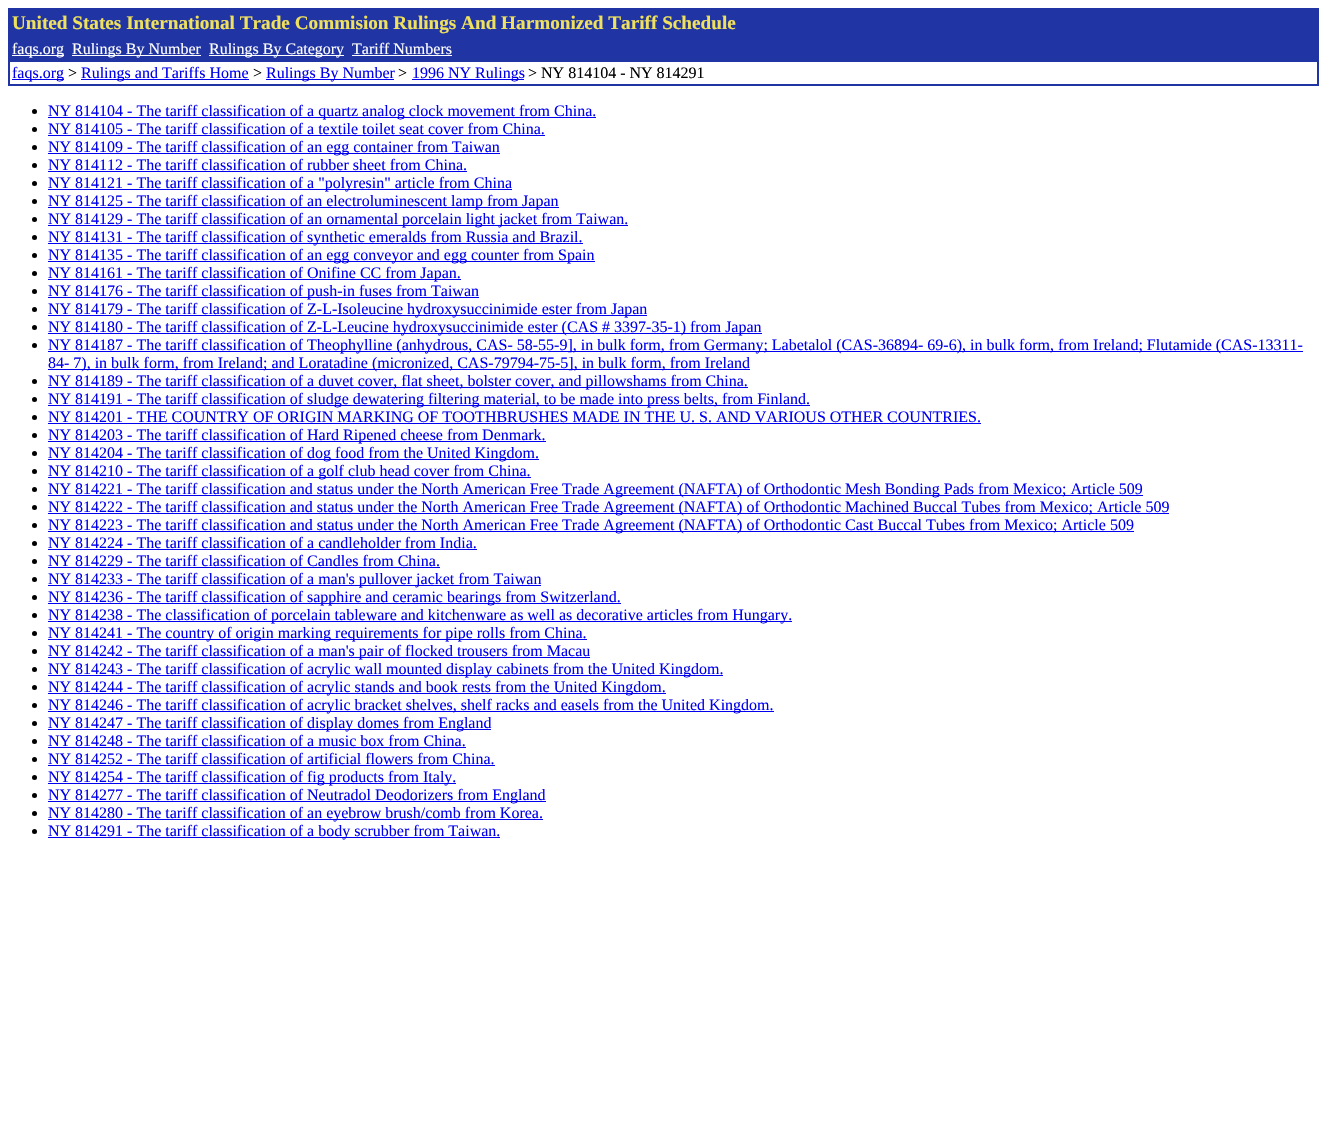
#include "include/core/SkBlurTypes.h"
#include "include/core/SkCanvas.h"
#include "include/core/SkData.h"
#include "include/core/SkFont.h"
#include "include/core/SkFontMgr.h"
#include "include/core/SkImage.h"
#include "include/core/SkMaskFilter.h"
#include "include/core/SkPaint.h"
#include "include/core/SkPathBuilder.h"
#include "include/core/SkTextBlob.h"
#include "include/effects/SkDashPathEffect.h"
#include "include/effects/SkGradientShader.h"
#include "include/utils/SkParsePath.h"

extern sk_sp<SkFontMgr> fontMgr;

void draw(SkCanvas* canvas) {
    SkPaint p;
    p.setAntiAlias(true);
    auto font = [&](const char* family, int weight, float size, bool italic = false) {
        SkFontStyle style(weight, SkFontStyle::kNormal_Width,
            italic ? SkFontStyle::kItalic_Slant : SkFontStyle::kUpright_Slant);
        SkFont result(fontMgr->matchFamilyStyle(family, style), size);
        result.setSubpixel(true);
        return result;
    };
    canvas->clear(0xFFFFFFFF);
    p.setColor(0xFF2134A3);
    canvas->drawRect(SkRect::MakeLTRB(8, 8, 1319, 86), p);
    auto font1 = font("Liberation Serif", 700, 19.2f);
    p.setColor(0xFFEFE15D);
    canvas->drawString("United States International Trade Commision Rulings And Harmonized Tariff Schedule", 12, 29, font1, p);
    p.setColor(0xFFFFFFFF);
    canvas->drawRect(SkRect::MakeLTRB(12, 55, 64, 56), p);
    auto font2 = font("Liberation Serif", 400, 16);
    canvas->drawString("faqs.org", 12, 54, font2, p);
    canvas->drawRect(SkRect::MakeLTRB(72, 55, 201, 56), p);
    canvas->drawString("Rulings By Number", 72, 54, font2, p);
    canvas->drawRect(SkRect::MakeLTRB(209, 55, 344, 56), p);
    canvas->drawString("Rulings By Category", 209, 54, font2, p);
    canvas->drawString("Tariff Numbers", 352, 54, font2, p);
    {
        const struct { float l, t, r, b; SkColor color; } items[] = {
            {352, 55, 452, 56, 0xFFFFFFFF},
            {10, 62, 1317, 84, 0xFFFFFFFF},
            {12, 79, 64, 80, 0xFF0000EE},
        };
        for (auto [l, t, r, b, color] : items) {
            p.setColor(color);
            canvas->drawRect(SkRect::MakeLTRB(l, t, r, b), p);
        }
    }
    canvas->drawString("faqs.org", 12, 78, font2, p);
    p.setColor(0xFF000000);
    canvas->drawString(">", 68, 78, font2, p);
    p.setColor(0xFF0000EE);
    canvas->drawRect(SkRect::MakeLTRB(81, 79, 249, 80), p);
    canvas->drawString("Rulings and Tariffs Home", 81, 78, font2, p);
    p.setColor(0xFF000000);
    canvas->drawString(">", 253, 78, font2, p);
    p.setColor(0xFF0000EE);
    canvas->drawRect(SkRect::MakeLTRB(266, 79, 394, 80), p);
    canvas->drawString("Rulings By Number", 266, 78, font2, p);
    p.setColor(0xFF000000);
    canvas->drawString(">", 398, 78, font2, p);
    p.setColor(0xFF0000EE);
    canvas->drawRect(SkRect::MakeLTRB(412, 79, 524, 80), p);
    canvas->drawString("1996 NY Rulings", 412, 78, font2, p);
    p.setColor(0xFF000000);
    canvas->drawString("> NY 814104 - NY 814291", 528, 78, font2, p);
    canvas->drawCircle(34.5f, 111.5f, 2.5f, p);
    p.setColor(0xFF0000EE);
    canvas->drawRect(SkRect::MakeLTRB(48, 117, 596, 118), p);
    canvas->drawString("NY 814104 - The tariff classification of a quartz analog clock movement from China.", 48, 116, font2, p);
    p.setColor(0xFF000000);
    canvas->drawCircle(34.5f, 129.5f, 2.5f, p);
    p.setColor(0xFF0000EE);
    canvas->drawString("NY 814105 - The tariff classification of a textile toilet seat cover from China.", 48, 134, font2, p);
    canvas->drawRect(SkRect::MakeLTRB(48, 135, 545, 136), p);
    p.setColor(0xFF000000);
    canvas->drawCircle(34.5f, 147.5f, 2.5f, p);
    p.setColor(0xFF0000EE);
    canvas->drawRect(SkRect::MakeLTRB(48, 153, 500, 154), p);
    canvas->drawString("NY 814109 - The tariff classification of an egg container from Taiwan", 48, 152, font2, p);
    p.setColor(0xFF000000);
    canvas->drawCircle(34.5f, 165.5f, 2.5f, p);
    p.setColor(0xFF0000EE);
    canvas->drawString("NY 814112 - The tariff classification of rubber sheet from China.", 48, 170, font2, p);
    canvas->drawRect(SkRect::MakeLTRB(48, 171, 467, 172), p);
    p.setColor(0xFF000000);
    canvas->drawCircle(34.5f, 183.5f, 2.5f, p);
    p.setColor(0xFF0000EE);
    canvas->drawRect(SkRect::MakeLTRB(48, 189, 512, 190), p);
    canvas->drawString("NY 814121 - The tariff classification of a \"polyresin\" article from China", 48, 188, font2, p);
    p.setColor(0xFF000000);
    canvas->drawCircle(34.5f, 201.5f, 2.5f, p);
    p.setColor(0xFF0000EE);
    canvas->drawRect(SkRect::MakeLTRB(48, 207, 559, 208), p);
    canvas->drawString("NY 814125 - The tariff classification of an electroluminescent lamp from Japan", 48, 206, font2, p);
    p.setColor(0xFF000000);
    canvas->drawCircle(34.5f, 219.5f, 2.5f, p);
    p.setColor(0xFF0000EE);
    canvas->drawRect(SkRect::MakeLTRB(48, 225, 628, 226), p);
    canvas->drawString("NY 814129 - The tariff classification of an ornamental porcelain light jacket from Taiwan.", 48, 224, font2, p);
    p.setColor(0xFF000000);
    canvas->drawCircle(34.5f, 237.5f, 2.5f, p);
    p.setColor(0xFF0000EE);
    canvas->drawRect(SkRect::MakeLTRB(48, 243, 583, 244), p);
    canvas->drawString("NY 814131 - The tariff classification of synthetic emeralds from Russia and Brazil.", 48, 242, font2, p);
    p.setColor(0xFF000000);
    canvas->drawCircle(34.5f, 255.5f, 2.5f, p);
    p.setColor(0xFF0000EE);
    canvas->drawRect(SkRect::MakeLTRB(48, 261, 595, 262), p);
    canvas->drawString("NY 814135 - The tariff classification of an egg conveyor and egg counter from Spain", 48, 260, font2, p);
    p.setColor(0xFF000000);
    canvas->drawCircle(34.5f, 273.5f, 2.5f, p);
    p.setColor(0xFF0000EE);
    canvas->drawRect(SkRect::MakeLTRB(48, 279, 461, 280), p);
    canvas->drawString("NY 814161 - The tariff classification of Onifine CC from Japan.", 48, 278, font2, p);
    p.setColor(0xFF000000);
    canvas->drawCircle(34.5f, 291.5f, 2.5f, p);
    p.setColor(0xFF0000EE);
    canvas->drawRect(SkRect::MakeLTRB(48, 297, 479, 298), p);
    canvas->drawString("NY 814176 - The tariff classification of push-in fuses from Taiwan", 48, 296, font2, p);
    p.setColor(0xFF000000);
    canvas->drawCircle(34.5f, 309.5f, 2.5f, p);
    p.setColor(0xFF0000EE);
    canvas->drawRect(SkRect::MakeLTRB(48, 315, 647, 316), p);
    canvas->drawString("NY 814179 - The tariff classification of Z-L-Isoleucine hydroxysuccinimide ester from Japan", 48, 314, font2, p);
    p.setColor(0xFF000000);
    canvas->drawCircle(34.5f, 327.5f, 2.5f, p);
    p.setColor(0xFF0000EE);
    canvas->drawRect(SkRect::MakeLTRB(48, 333, 762, 334), p);
    canvas->drawString("NY 814180 - The tariff classification of Z-L-Leucine hydroxysuccinimide ester (CAS # 3397-35-1) from Japan", 48, 332, font2, p);
    p.setColor(0xFF000000);
    canvas->drawCircle(34.5f, 345.5f, 2.5f, p);
    p.setColor(0xFF0000EE);
    canvas->drawRect(SkRect::MakeLTRB(48, 351, 1303, 352), p);
    canvas->drawString("NY 814187 - The tariff classification of Theophylline (anhydrous, CAS- 58-55-9], in bulk form, from Germany; Labetalol (CAS-36894- 69-6), in bulk form, from Ireland; Flutamide (CAS-13311-", 48, 350, font2, p);
    canvas->drawRect(SkRect::MakeLTRB(48, 369, 750, 370), p);
    canvas->drawString("84- 7), in bulk form, from Ireland; and Loratadine (micronized, CAS-79794-75-5], in bulk form, from Ireland", 48, 368, font2, p);
    p.setColor(0xFF000000);
    canvas->drawCircle(34.5f, 381.5f, 2.5f, p);
    p.setColor(0xFF0000EE);
    canvas->drawRect(SkRect::MakeLTRB(48, 387, 748, 388), p);
    canvas->drawString("NY 814189 - The tariff classification of a duvet cover, flat sheet, bolster cover, and pillowshams from China.", 48, 386, font2, p);
    p.setColor(0xFF000000);
    canvas->drawCircle(34.5f, 399.5f, 2.5f, p);
    p.setColor(0xFF0000EE);
    canvas->drawRect(SkRect::MakeLTRB(48, 405, 810, 406), p);
    canvas->drawString("NY 814191 - The tariff classification of sludge dewatering filtering material, to be made into press belts, from Finland.", 48, 404, font2, p);
    p.setColor(0xFF000000);
    canvas->drawCircle(34.5f, 417.5f, 2.5f, p);
    p.setColor(0xFF0000EE);
    canvas->drawString("NY 814201 - THE COUNTRY OF ORIGIN MARKING OF TOOTHBRUSHES MADE IN THE U. S. AND VARIOUS OTHER COUNTRIES.", 48, 422, font2, p);
    canvas->drawRect(SkRect::MakeLTRB(48, 423, 981, 424), p);
    p.setColor(0xFF000000);
    canvas->drawCircle(34.5f, 435.5f, 2.5f, p);
    p.setColor(0xFF0000EE);
    canvas->drawRect(SkRect::MakeLTRB(48, 441, 546, 442), p);
    canvas->drawString("NY 814203 - The tariff classification of Hard Ripened cheese from Denmark.", 48, 440, font2, p);
    p.setColor(0xFF000000);
    canvas->drawCircle(34.5f, 453.5f, 2.5f, p);
    p.setColor(0xFF0000EE);
    canvas->drawRect(SkRect::MakeLTRB(48, 459, 539, 460), p);
    canvas->drawString("NY 814204 - The tariff classification of dog food from the United Kingdom.", 48, 458, font2, p);
    p.setColor(0xFF000000);
    canvas->drawCircle(34.5f, 471.5f, 2.5f, p);
    p.setColor(0xFF0000EE);
    canvas->drawRect(SkRect::MakeLTRB(48, 477, 531, 478), p);
    canvas->drawString("NY 814210 - The tariff classification of a golf club head cover from China.", 48, 476, font2, p);
    p.setColor(0xFF000000);
    canvas->drawCircle(34.5f, 489.5f, 2.5f, p);
    p.setColor(0xFF0000EE);
    canvas->drawRect(SkRect::MakeLTRB(48, 495, 1143, 496), p);
    canvas->drawString("NY 814221 - The tariff classification and status under the North American Free Trade Agreement (NAFTA) of Orthodontic Mesh Bonding Pads from Mexico; Article 509", 48, 494, font2, p);
    p.setColor(0xFF000000);
    canvas->drawCircle(34.5f, 507.5f, 2.5f, p);
    p.setColor(0xFF0000EE);
    canvas->drawRect(SkRect::MakeLTRB(48, 513, 1169, 514), p);
    canvas->drawString("NY 814222 - The tariff classification and status under the North American Free Trade Agreement (NAFTA) of Orthodontic Machined Buccal Tubes from Mexico; Article 509", 48, 512, font2, p);
    p.setColor(0xFF000000);
    canvas->drawCircle(34.5f, 525.5f, 2.5f, p);
    p.setColor(0xFF0000EE);
    canvas->drawRect(SkRect::MakeLTRB(48, 531, 1134, 532), p);
    canvas->drawString("NY 814223 - The tariff classification and status under the North American Free Trade Agreement (NAFTA) of Orthodontic Cast Buccal Tubes from Mexico; Article 509", 48, 530, font2, p);
    p.setColor(0xFF000000);
    canvas->drawCircle(34.5f, 543.5f, 2.5f, p);
    p.setColor(0xFF0000EE);
    canvas->drawString("NY 814224 - The tariff classification of a candleholder from India.", 48, 548, font2, p);
    canvas->drawRect(SkRect::MakeLTRB(48, 549, 477, 550), p);
    p.setColor(0xFF000000);
    canvas->drawCircle(34.5f, 561.5f, 2.5f, p);
    p.setColor(0xFF0000EE);
    canvas->drawString("NY 814229 - The tariff classification of Candles from China.", 48, 566, font2, p);
    canvas->drawRect(SkRect::MakeLTRB(48, 567, 440, 568), p);
    p.setColor(0xFF000000);
    canvas->drawCircle(34.5f, 579.5f, 2.5f, p);
    p.setColor(0xFF0000EE);
    canvas->drawRect(SkRect::MakeLTRB(48, 585, 541, 586), p);
    canvas->drawString("NY 814233 - The tariff classification of a man's pullover jacket from Taiwan", 48, 584, font2, p);
    p.setColor(0xFF000000);
    canvas->drawCircle(34.5f, 597.5f, 2.5f, p);
    p.setColor(0xFF0000EE);
    canvas->drawRect(SkRect::MakeLTRB(48, 603, 621, 604), p);
    canvas->drawString("NY 814236 - The tariff classification of sapphire and ceramic bearings from Switzerland.", 48, 602, font2, p);
    p.setColor(0xFF000000);
    canvas->drawCircle(34.5f, 615.5f, 2.5f, p);
    p.setColor(0xFF0000EE);
    canvas->drawRect(SkRect::MakeLTRB(48, 621, 792, 622), p);
    canvas->drawString("NY 814238 - The classification of porcelain tableware and kitchenware as well as decorative articles from Hungary.", 48, 620, font2, p);
    p.setColor(0xFF000000);
    canvas->drawCircle(34.5f, 633.5f, 2.5f, p);
    p.setColor(0xFF0000EE);
    canvas->drawRect(SkRect::MakeLTRB(48, 639, 587, 640), p);
    canvas->drawString("NY 814241 - The country of origin marking requirements for pipe rolls from China.", 48, 638, font2, p);
    p.setColor(0xFF000000);
    canvas->drawCircle(34.5f, 651.5f, 2.5f, p);
    p.setColor(0xFF0000EE);
    canvas->drawRect(SkRect::MakeLTRB(48, 657, 590, 658), p);
    canvas->drawString("NY 814242 - The tariff classification of a man's pair of flocked trousers from Macau", 48, 656, font2, p);
    p.setColor(0xFF000000);
    canvas->drawCircle(34.5f, 669.5f, 2.5f, p);
    p.setColor(0xFF0000EE);
    canvas->drawRect(SkRect::MakeLTRB(48, 675, 723, 676), p);
    canvas->drawString("NY 814243 - The tariff classification of acrylic wall mounted display cabinets from the United Kingdom.", 48, 674, font2, p);
    p.setColor(0xFF000000);
    canvas->drawCircle(34.5f, 687.5f, 2.5f, p);
    p.setColor(0xFF0000EE);
    canvas->drawRect(SkRect::MakeLTRB(48, 693, 666, 694), p);
    canvas->drawString("NY 814244 - The tariff classification of acrylic stands and book rests from the United Kingdom.", 48, 692, font2, p);
    p.setColor(0xFF000000);
    canvas->drawCircle(34.5f, 705.5f, 2.5f, p);
    p.setColor(0xFF0000EE);
    canvas->drawRect(SkRect::MakeLTRB(48, 711, 774, 712), p);
    canvas->drawString("NY 814246 - The tariff classification of acrylic bracket shelves, shelf racks and easels from the United Kingdom.", 48, 710, font2, p);
    p.setColor(0xFF000000);
    canvas->drawCircle(34.5f, 723.5f, 2.5f, p);
    p.setColor(0xFF0000EE);
    canvas->drawRect(SkRect::MakeLTRB(48, 729, 491, 730), p);
    canvas->drawString("NY 814247 - The tariff classification of display domes from England", 48, 728, font2, p);
    p.setColor(0xFF000000);
    canvas->drawCircle(34.5f, 741.5f, 2.5f, p);
    p.setColor(0xFF0000EE);
    canvas->drawString("NY 814248 - The tariff classification of a music box from China.", 48, 746, font2, p);
    canvas->drawRect(SkRect::MakeLTRB(48, 747, 466, 748), p);
    p.setColor(0xFF000000);
    canvas->drawCircle(34.5f, 759.5f, 2.5f, p);
    p.setColor(0xFF0000EE);
    canvas->drawString("NY 814252 - The tariff classification of artificial flowers from China.", 48, 764, font2, p);
    canvas->drawRect(SkRect::MakeLTRB(48, 765, 495, 766), p);
    p.setColor(0xFF000000);
    canvas->drawCircle(34.5f, 777.5f, 2.5f, p);
    p.setColor(0xFF0000EE);
    canvas->drawRect(SkRect::MakeLTRB(48, 783, 456, 784), p);
    canvas->drawString("NY 814254 - The tariff classification of fig products from Italy.", 48, 782, font2, p);
    p.setColor(0xFF000000);
    canvas->drawCircle(34.5f, 795.5f, 2.5f, p);
    p.setColor(0xFF0000EE);
    canvas->drawRect(SkRect::MakeLTRB(48, 801, 546, 802), p);
    canvas->drawString("NY 814277 - The tariff classification of Neutradol Deodorizers from England", 48, 800, font2, p);
    p.setColor(0xFF000000);
    canvas->drawCircle(34.5f, 813.5f, 2.5f, p);
    p.setColor(0xFF0000EE);
    canvas->drawRect(SkRect::MakeLTRB(48, 819, 543, 820), p);
    canvas->drawString("NY 814280 - The tariff classification of an eyebrow brush/comb from Korea.", 48, 818, font2, p);
    p.setColor(0xFF000000);
    canvas->drawCircle(34.5f, 831.5f, 2.5f, p);
    p.setColor(0xFF0000EE);
    canvas->drawRect(SkRect::MakeLTRB(48, 837, 500, 838), p);
    canvas->drawString("NY 814291 - The tariff classification of a body scrubber from Taiwan.", 48, 836, font2, p);
}
